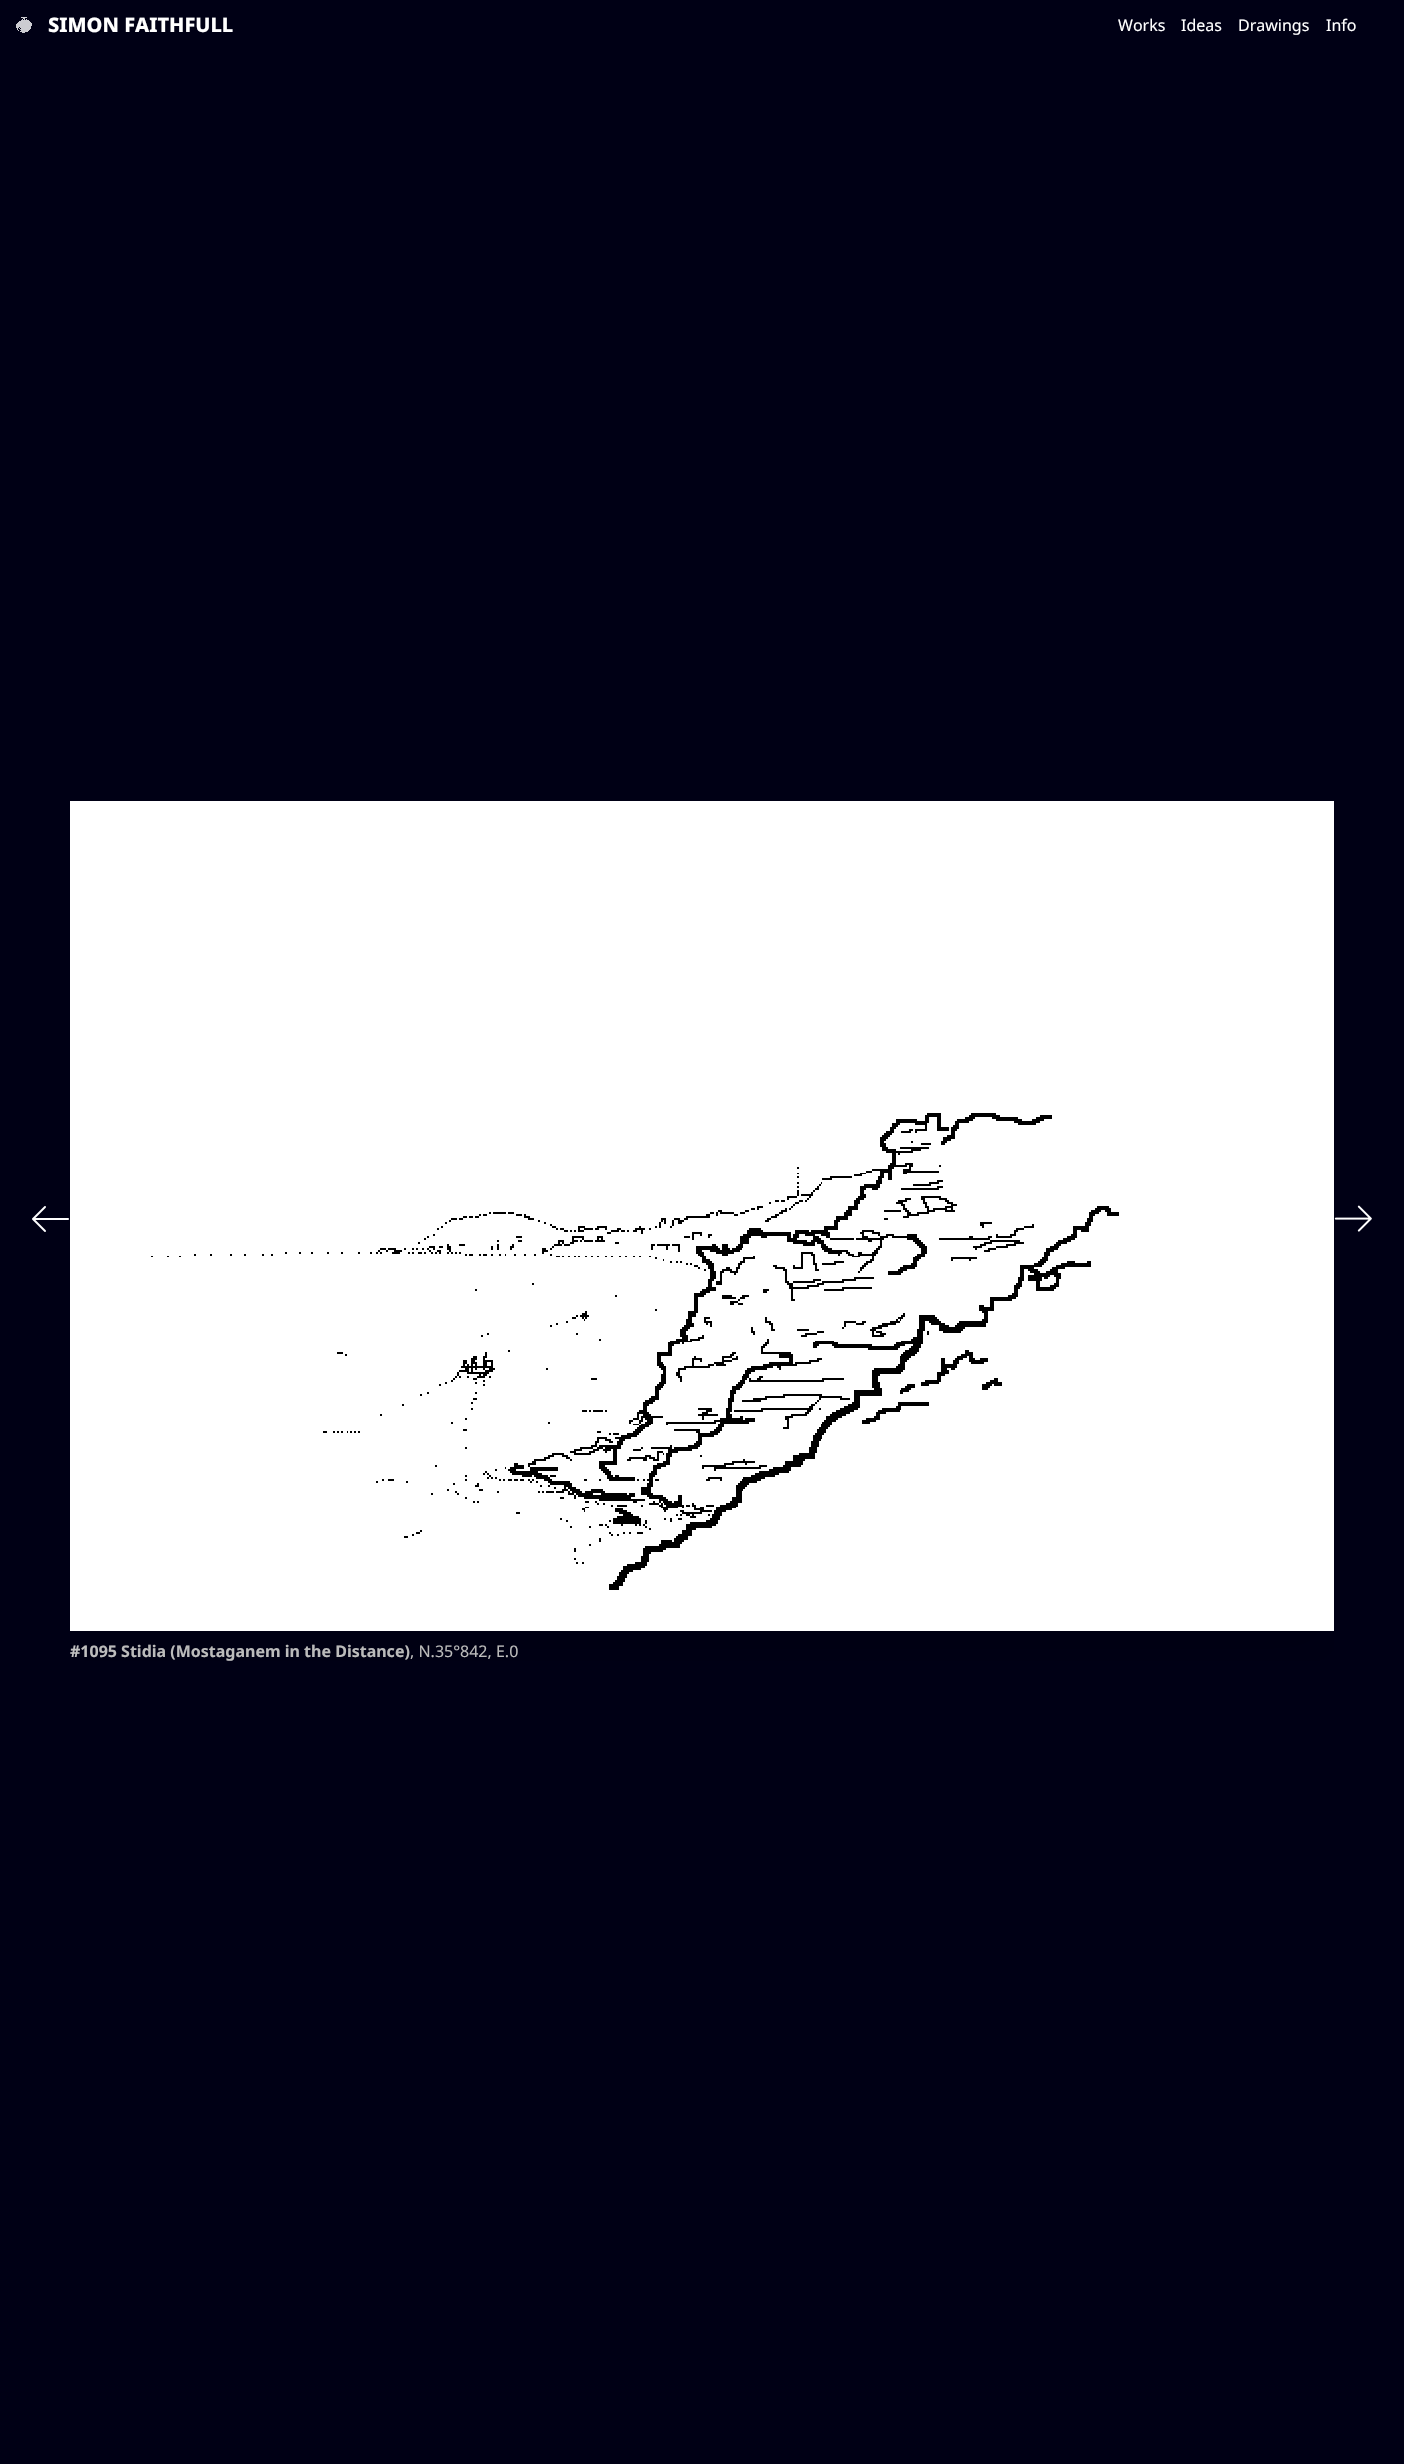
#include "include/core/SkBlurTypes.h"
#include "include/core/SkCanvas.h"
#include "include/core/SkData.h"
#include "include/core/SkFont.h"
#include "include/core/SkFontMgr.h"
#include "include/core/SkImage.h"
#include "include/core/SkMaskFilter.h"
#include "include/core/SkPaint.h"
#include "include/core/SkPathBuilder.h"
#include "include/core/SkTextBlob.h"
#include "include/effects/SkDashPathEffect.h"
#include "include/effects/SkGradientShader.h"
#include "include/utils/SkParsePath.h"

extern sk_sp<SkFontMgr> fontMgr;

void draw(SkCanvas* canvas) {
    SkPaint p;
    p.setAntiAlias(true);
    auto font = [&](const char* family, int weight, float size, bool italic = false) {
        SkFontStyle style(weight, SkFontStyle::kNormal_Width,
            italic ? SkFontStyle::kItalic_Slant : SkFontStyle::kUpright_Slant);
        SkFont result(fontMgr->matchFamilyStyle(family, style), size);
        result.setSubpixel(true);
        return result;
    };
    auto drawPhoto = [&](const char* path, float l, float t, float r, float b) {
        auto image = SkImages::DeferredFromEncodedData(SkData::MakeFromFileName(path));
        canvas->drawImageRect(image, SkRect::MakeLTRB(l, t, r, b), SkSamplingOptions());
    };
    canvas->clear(0xFF000015);
    drawPhoto("media/1.png", 16, 17, 32, 33);
    auto font1 = font("Noto Sans", 800, 20);
    p.setColor(0xFFFFFFFF);
    canvas->drawString("SIMON FAITHFULL", 48, 32, font1, p);
    auto font2 = font("Noto Sans", 400, 16);
    {
        const struct { const char* s; float x, y; } items[] = {
            {"Works", 1118, 31},
            {"Ideas", 1181, 31},
            {"Drawings", 1238, 31},
            {"Info", 1326, 31},
        };
        for (auto [s, x, y] : items) {
            canvas->drawString(s, x, y, font2, p);
        }
    }
    drawPhoto("media/2.png", 32, 1206, 69, 1232);
    drawPhoto("media/3.png", 1334, 1205, 1372, 1232);
    auto font3 = font("Noto Sans", 700, 16);
    p.setColor(0xFFCCCCCC);
    canvas->drawString("#1095 Stidia (Mostaganem in the Distance)", 70, 1657, font3, p);
    canvas->drawString(", N.35°842, E.0", 410, 1657, font2, p);
    drawPhoto("media/4.png", 70, 801, 1334, 1661);
}
